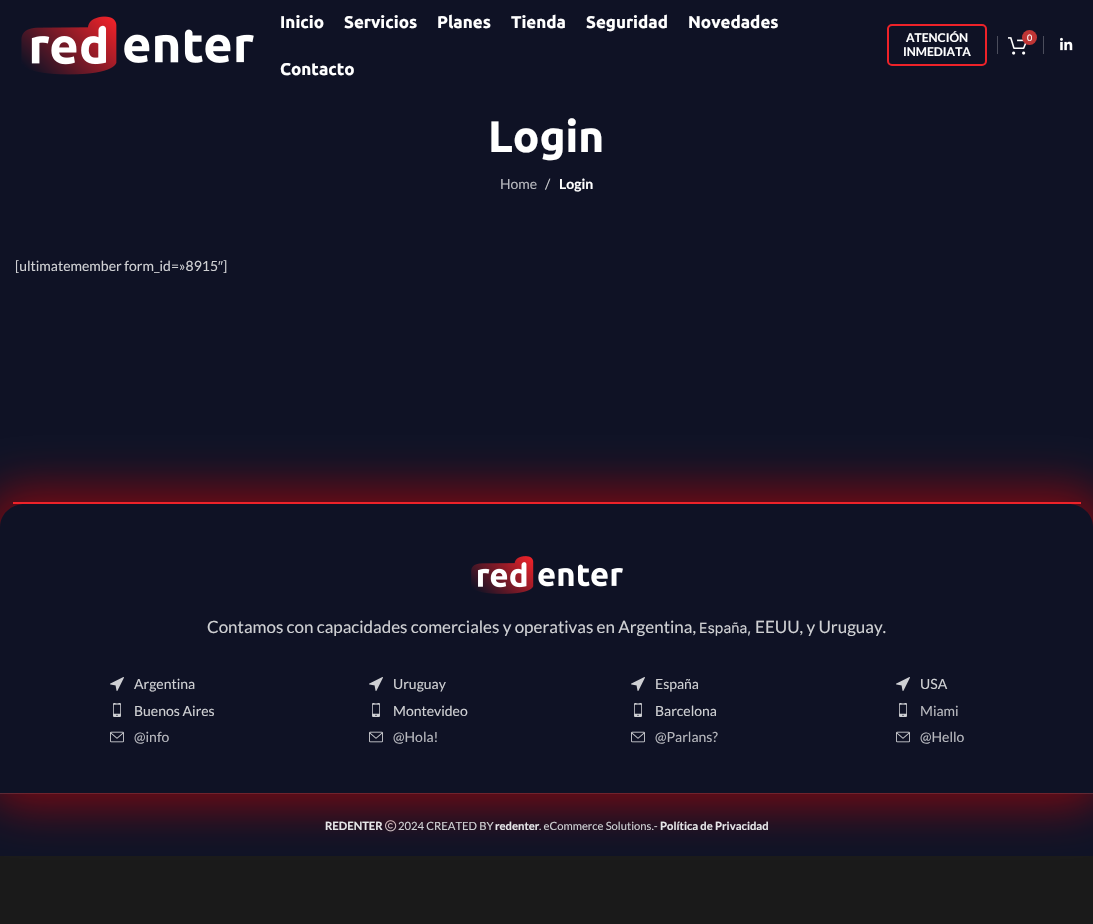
#include "include/core/SkBlurTypes.h"
#include "include/core/SkCanvas.h"
#include "include/core/SkData.h"
#include "include/core/SkFont.h"
#include "include/core/SkFontMgr.h"
#include "include/core/SkImage.h"
#include "include/core/SkMaskFilter.h"
#include "include/core/SkPaint.h"
#include "include/core/SkPathBuilder.h"
#include "include/core/SkTextBlob.h"
#include "include/effects/SkDashPathEffect.h"
#include "include/effects/SkGradientShader.h"
#include "include/utils/SkParsePath.h"

extern sk_sp<SkFontMgr> fontMgr;

void draw(SkCanvas* canvas) {
    SkPaint p;
    p.setAntiAlias(true);
    auto font = [&](const char* family, int weight, float size, bool italic = false) {
        SkFontStyle style(weight, SkFontStyle::kNormal_Width,
            italic ? SkFontStyle::kItalic_Slant : SkFontStyle::kUpright_Slant);
        SkFont result(fontMgr->matchFamilyStyle(family, style), size);
        result.setSubpixel(true);
        return result;
    };
    auto drawPhoto = [&](const char* path, float l, float t, float r, float b) {
        auto image = SkImages::DeferredFromEncodedData(SkData::MakeFromFileName(path));
        canvas->drawImageRect(image, SkRect::MakeLTRB(l, t, r, b), SkSamplingOptions());
    };
    canvas->clear(0xFF1A1A1A);
    p.setColor(0xFF0F1225);
    canvas->drawRect(SkRect::MakeLTRB(0, 0, 1093, 856), p);
    drawPhoto("media/1.png", 21, 16, 254, 75);
    auto font1 = font("Ubuntu", 700, 17);
    p.setColor(0xFFFFFFFF);
    {
        const struct { const char* s; float x, y; } items[] = {
            {"Inicio", 280, 28},
            {"Servicios", 344, 28},
            {"Planes", 437, 28},
            {"Tienda", 511, 28},
            {"Seguridad", 586, 28},
            {"Novedades", 688, 28},
            {"Contacto", 280, 75},
        };
        for (auto [s, x, y] : items) {
            canvas->drawString(s, x, y, font1, p);
        }
    }
    p.setStyle(SkPaint::kStroke_Style);
    p.setStrokeWidth(2);
    p.setColor(0xFFEE2229);
    canvas->drawRoundRect(SkRect::MakeLTRB(888, 25, 986, 65), 4, 4, p);
    auto font2 = font("Lato", 700, 12);
    p.setStyle(SkPaint::kFill_Style);
    p.setColor(0xFFFFFFFF);
    canvas->drawString("ATENCIÓN", 906, 42, font2, p);
    canvas->drawString("INMEDIATA", 903, 56, font2, p);
    p.setColor(0xFF4B4D5C);
    canvas->drawRect(SkRect::MakeLTRB(997, 36, 998, 54), p);
    drawPhoto("media/2.png", 1008, 37, 1027, 55);
    p.setColor(0xFFBF3535);
    canvas->drawCircle(1029.5f, 37.5f, 7.5f, p);
    auto font3 = font("Lato", 400, 9);
    p.setColor(0xFFFFFFFF);
    canvas->drawString("0", 1027, 41, font3, p);
    p.setColor(0xFF4B4D5C);
    canvas->drawRect(SkRect::MakeLTRB(1043, 36, 1044, 54), p);
    drawPhoto("media/3.png", 1060, 37, 1073, 51);
    auto font4 = font("Ubuntu", 700, 44);
    p.setColor(0xFFFFFFFF);
    canvas->drawString("Login", 488, 152, font4, p);
    auto font5 = font("Lato", 400, 14);
    p.setColor(0xFFB7B8BE);
    canvas->drawString("Home", 500, 189, font5, p);
    p.setColor(0xFFCFD0D3);
    canvas->drawString("/", 545, 189, font5, p);
    auto font6 = font("Lato", 700, 14);
    p.setColor(0xFFFFFFFF);
    canvas->drawString("Login", 559, 189, font6, p);
    p.setColor(0xFFCFD0D3);
    canvas->drawString("[ultimatemember form_id=»8915", 15, 271, font5, p);
    auto font7 = font("Liberation Sans", 400, 14);
    canvas->drawString("″", 218, 271, font7, p);
    canvas->drawString("]", 223, 271, font5, p);
    p.setColor(0xFF333646);
    canvas->drawRect(SkRect::MakeLTRB(0, 793, 1093, 794), p);
    drawPhoto("media/8.png", 385, 820, 397, 832);
    p.setColor(0x80D80101);
    p.setMaskFilter(SkMaskFilter::MakeBlur(kNormal_SkBlurStyle, 22));
    canvas->drawRoundRect(SkRect::MakeLTRB(-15, 487, 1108, 808), 40, 40, p);
    p.setMaskFilter(nullptr);
    p.setColor(0xFF0F1225);
    canvas->drawPath(SkPathBuilder().moveTo(25, 504).lineTo(1068, 504).cubicTo(1082, 504, 1093, 514, 1093, 527).lineTo(1093, 793).lineTo(0, 793).lineTo(0, 527).cubicTo(0, 514, 11, 504, 25, 504).close().detach(), p);
    p.setColor(0xFFEE2229);
    canvas->drawRect(SkRect::MakeLTRB(13, 502, 1081, 504), p);
    drawPhoto("media/4.png", 471, 556, 623, 594);
    auto font8 = font("Lato", 400, 17);
    p.setColor(0xFFCFD0D3);
    canvas->drawString("Contamos con capacidades comerciales y operativas en Argentina,", 207, 633, font8, p);
    auto font9 = font("Inter", 400, 14);
    canvas->drawString("España,", 699, 633, font9, p);
    canvas->drawString("EEUU, y Uruguay.", 755, 633, font8, p);
    drawPhoto("media/5.png", 110, 677, 124, 691);
    canvas->drawString("Argentina", 134, 689, font5, p);
    drawPhoto("media/6.png", 113, 703, 121, 717);
    canvas->drawString("Buenos Aires", 134, 716, font5, p);
    drawPhoto("media/7.png", 110, 731, 124, 743);
    p.setColor(0xFFB7B8BE);
    canvas->drawString("@info", 134, 742, font5, p);
    drawPhoto("media/5.png", 369, 677, 383, 691);
    p.setColor(0xFFCFD0D3);
    canvas->drawString("Uruguay", 393, 689, font5, p);
    drawPhoto("media/6.png", 372, 703, 380, 717);
    canvas->drawString("Montevideo", 393, 716, font5, p);
    drawPhoto("media/7.png", 369, 731, 383, 743);
    p.setColor(0xFFB7B8BE);
    canvas->drawString("@Hola!", 393, 742, font5, p);
    drawPhoto("media/5.png", 631, 677, 645, 691);
    p.setColor(0xFFCFD0D3);
    canvas->drawString("España", 655, 689, font5, p);
    drawPhoto("media/6.png", 634, 703, 642, 717);
    canvas->drawString("Barcelona", 655, 716, font5, p);
    drawPhoto("media/7.png", 631, 731, 645, 743);
    p.setColor(0xFFB7B8BE);
    canvas->drawString("@Parlans?", 655, 742, font5, p);
    drawPhoto("media/5.png", 896, 677, 910, 691);
    p.setColor(0xFFCFD0D3);
    canvas->drawString("USA", 920, 689, font5, p);
    drawPhoto("media/6.png", 899, 703, 907, 717);
    p.setColor(0xFFB7B8BE);
    canvas->drawString("Miami", 920, 716, font5, p);
    drawPhoto("media/7.png", 896, 731, 910, 743);
    canvas->drawString("@Hello", 920, 742, font5, p);
    auto font10 = font("Lato", 700, 11.25f);
    p.setColor(0xFFE7E7E9);
    canvas->drawString("REDENTER", 325, 830, font10, p);
    auto font11 = font("Lato", 400, 11.25f);
    p.setColor(0xFFCFD0D3);
    canvas->drawString("2024 CREATED BY", 398, 830, font11, p);
    p.setColor(0xFFE7E7E9);
    canvas->drawString("redenter", 495, 830, font10, p);
    p.setColor(0xFFCFD0D3);
    canvas->drawString(". eCommerce Solutions.-", 539, 830, font11, p);
    p.setColor(0xFFE7E7E9);
    canvas->drawString("Política de Privacidad", 660, 830, font10, p);
}
